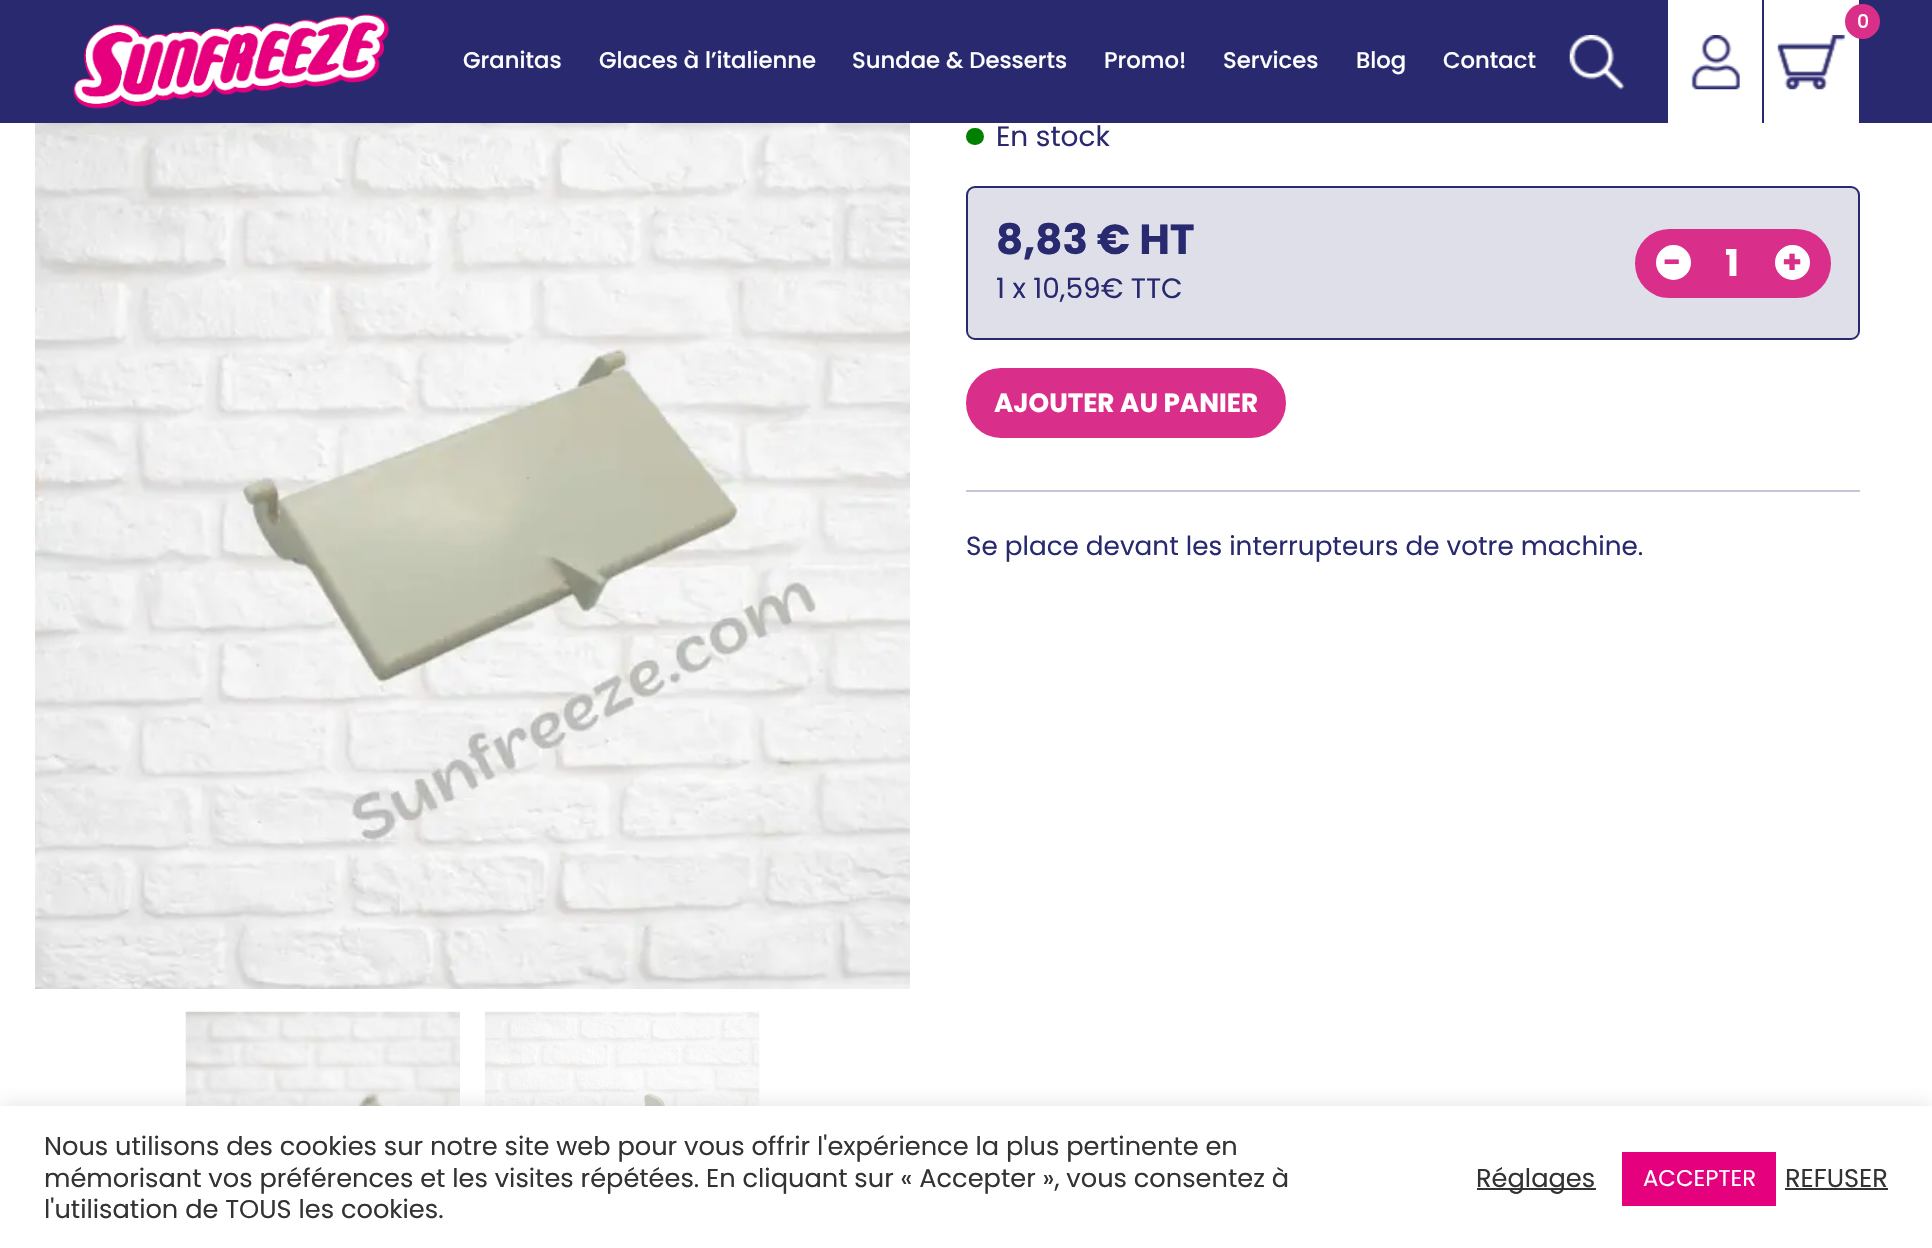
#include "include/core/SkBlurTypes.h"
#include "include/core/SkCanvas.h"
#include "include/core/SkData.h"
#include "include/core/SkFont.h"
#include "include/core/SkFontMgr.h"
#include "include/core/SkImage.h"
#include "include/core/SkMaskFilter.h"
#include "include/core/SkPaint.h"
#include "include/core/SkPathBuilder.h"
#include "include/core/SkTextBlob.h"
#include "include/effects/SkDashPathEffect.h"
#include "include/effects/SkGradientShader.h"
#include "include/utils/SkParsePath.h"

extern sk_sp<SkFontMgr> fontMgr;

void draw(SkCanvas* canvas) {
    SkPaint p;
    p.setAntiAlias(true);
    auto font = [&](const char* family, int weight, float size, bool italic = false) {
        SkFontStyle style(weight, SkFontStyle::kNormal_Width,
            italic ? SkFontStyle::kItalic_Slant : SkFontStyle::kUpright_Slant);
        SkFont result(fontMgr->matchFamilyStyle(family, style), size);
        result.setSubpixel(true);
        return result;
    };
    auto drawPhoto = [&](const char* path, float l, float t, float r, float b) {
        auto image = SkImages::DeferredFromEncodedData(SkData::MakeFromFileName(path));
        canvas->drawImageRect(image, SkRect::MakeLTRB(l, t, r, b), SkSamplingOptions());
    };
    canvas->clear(0xFFFFFFFF);
    p.setColor(0xFF28296F);
    canvas->drawRect(SkRect::MakeLTRB(0, 0, 1932, 123), p);
    drawPhoto("media/1.png", 72, 14, 389, 109);
    p.setColor(0xFFFFFFFF);
    canvas->drawRect(SkRect::MakeLTRB(1668, 0, 1762, 123), p);
    drawPhoto("media/2.png", 1691, 35, 1740, 90);
    canvas->drawRect(SkRect::MakeLTRB(1764, 0, 1859, 123), p);
    p.setColor(0xFFD92F89);
    canvas->drawCircle(1862.5f, 21.5f, 17.5f, p);
    auto font1 = font("Poppins", 500, 19);
    p.setColor(0xFFFFFFFF);
    canvas->drawString("0", 1857, 28, font1, p);
    drawPhoto("media/3.png", 1777, 35, 1845, 90);
    drawPhoto("media/4.png", 1569, 35, 1625, 90);
    auto font2 = font("Poppins", 500, 22.75f);
    {
        const struct { const char* s; float x, y; } items[] = {
            {"Granitas", 463, 68},
            {"Glaces à l’italienne", 599, 68},
            {"Sundae & Desserts", 852, 68},
            {"Promo!", 1104, 68},
            {"Services", 1223, 68},
            {"Blog", 1356, 68},
            {"Contact", 1443, 68},
        };
        for (auto [s, x, y] : items) {
            canvas->drawString(s, x, y, font2, p);
        }
    }
    drawPhoto("media/5.png", 35, 123, 910, 989);
    drawPhoto("media/6.png", 185, 1011, 460, 1106);
    drawPhoto("media/7.png", 485, 1011, 760, 1106);
    p.setColor(0xFF008000);
    canvas->drawRoundRect(SkRect::MakeLTRB(966, 128, 984, 145), 8.5f, 8.5f, p);
    auto font3 = font("Poppins", 400, 28);
    p.setColor(0xFF28296F);
    canvas->drawString("En stock", 996, 146, font3, p);
    p.setColor(0xFFDFDFEA);
    canvas->drawRoundRect(SkRect::MakeLTRB(967, 187, 1859, 339), 8, 8, p);
    p.setStyle(SkPaint::kStroke_Style);
    p.setStrokeWidth(2);
    p.setColor(0xFF28296F);
    canvas->drawRoundRect(SkRect::MakeLTRB(967, 187, 1859, 339), 8, 8, p);
    auto font4 = font("Poppins", 700, 42);
    p.setStyle(SkPaint::kFill_Style);
    canvas->drawString("8,83 € HT", 996, 254, font4, p);
    canvas->drawString("1 x 10,59€ TTC", 996, 298, font3, p);
    p.setColor(0xFFD92F8A);
    canvas->drawRoundRect(SkRect::MakeLTRB(1636, 230, 1830, 297), 33.5f, 33.5f, p);
    p.setStyle(SkPaint::kStroke_Style);
    canvas->drawRoundRect(SkRect::MakeLTRB(1636, 230, 1830, 297), 33.5f, 33.5f, p);
    p.setStyle(SkPaint::kFill_Style);
    p.setColor(0xFFFFFFFF);
    canvas->drawCircle(1673.5f, 262.5f, 16.5f, p);
    p.setStyle(SkPaint::kStroke_Style);
    canvas->drawCircle(1673.5f, 262.5f, 16.5f, p);
    auto font5 = font("Poppins", 700, 32);
    p.setStyle(SkPaint::kFill_Style);
    p.setColor(0xFFD92F8A);
    canvas->drawString("-", 1663, 273, font5, p);
    auto font6 = font("Poppins", 700, 37);
    p.setColor(0xFFFFFFFF);
    canvas->drawString("1", 1725, 276, font6, p);
    canvas->drawCircle(1792.5f, 262.5f, 16.5f, p);
    p.setStyle(SkPaint::kStroke_Style);
    canvas->drawCircle(1792.5f, 262.5f, 16.5f, p);
    p.setStyle(SkPaint::kFill_Style);
    p.setColor(0xFFD92F8A);
    canvas->drawString("+", 1782, 273, font5, p);
    canvas->drawRoundRect(SkRect::MakeLTRB(967, 369, 1285, 437), 34, 34, p);
    p.setStyle(SkPaint::kStroke_Style);
    canvas->drawRoundRect(SkRect::MakeLTRB(967, 369, 1285, 437), 34, 34, p);
    auto font7 = font("Poppins", 700, 26.25f);
    p.setStyle(SkPaint::kFill_Style);
    p.setColor(0xFFFFFFFF);
    canvas->drawString("AJOUTER AU PANIER", 994, 412, font7, p);
    p.setColor(0xFFC6C6D9);
    canvas->drawRect(SkRect::MakeLTRB(966, 490, 1860, 492), p);
    auto font8 = font("Poppins", 400, 26.25f);
    p.setColor(0xFF28296F);
    canvas->drawString("Se place devant les interrupteurs de votre machine.", 966, 555, font8, p);
    p.setColor(0x4DACABAB);
    p.setMaskFilter(SkMaskFilter::MakeBlur(kNormal_SkBlurStyle, 9));
    canvas->drawRect(SkRect::MakeLTRB(0, 1104, 1932, 1248), p);
    p.setMaskFilter(nullptr);
    p.setColor(0xFFFFFFFF);
    canvas->drawRect(SkRect::MakeLTRB(0, 1106, 1932, 1248), p);
    auto font9 = font("Poppins", 400, 25.65f);
    p.setColor(0xFF333333);
    {
        const struct { const char* s; float x, y; } items[] = {
            {"Nous utilisons des cookies sur notre site web pour vous offrir l'expérience la plus pertinente en", 44, 1155},
            {"mémorisant vos préférences et les visites répétées. En cliquant sur « Accepter », vous consentez à", 44, 1187},
            {"l'utilisation de TOUS les cookies.", 44, 1218},
        };
        for (auto [s, x, y] : items) {
            canvas->drawString(s, x, y, font9, p);
        }
    }
    canvas->drawRect(SkRect::MakeLTRB(1477, 1188, 1596, 1190), p);
    canvas->drawString("Réglages", 1476, 1187, font9, p);
    p.setColor(0xFFE5007E);
    canvas->drawRect(SkRect::MakeLTRB(1622, 1152, 1776, 1206), p);
    auto font10 = font("Poppins", 400, 22.75f);
    p.setColor(0xFFFFFFFF);
    canvas->drawString("ACCEPTER", 1643, 1186, font10, p);
    p.setColor(0xFF333333);
    canvas->drawString("REFUSER", 1785, 1187, font9, p);
    canvas->drawRect(SkRect::MakeLTRB(1785, 1188, 1888, 1190), p);
}
